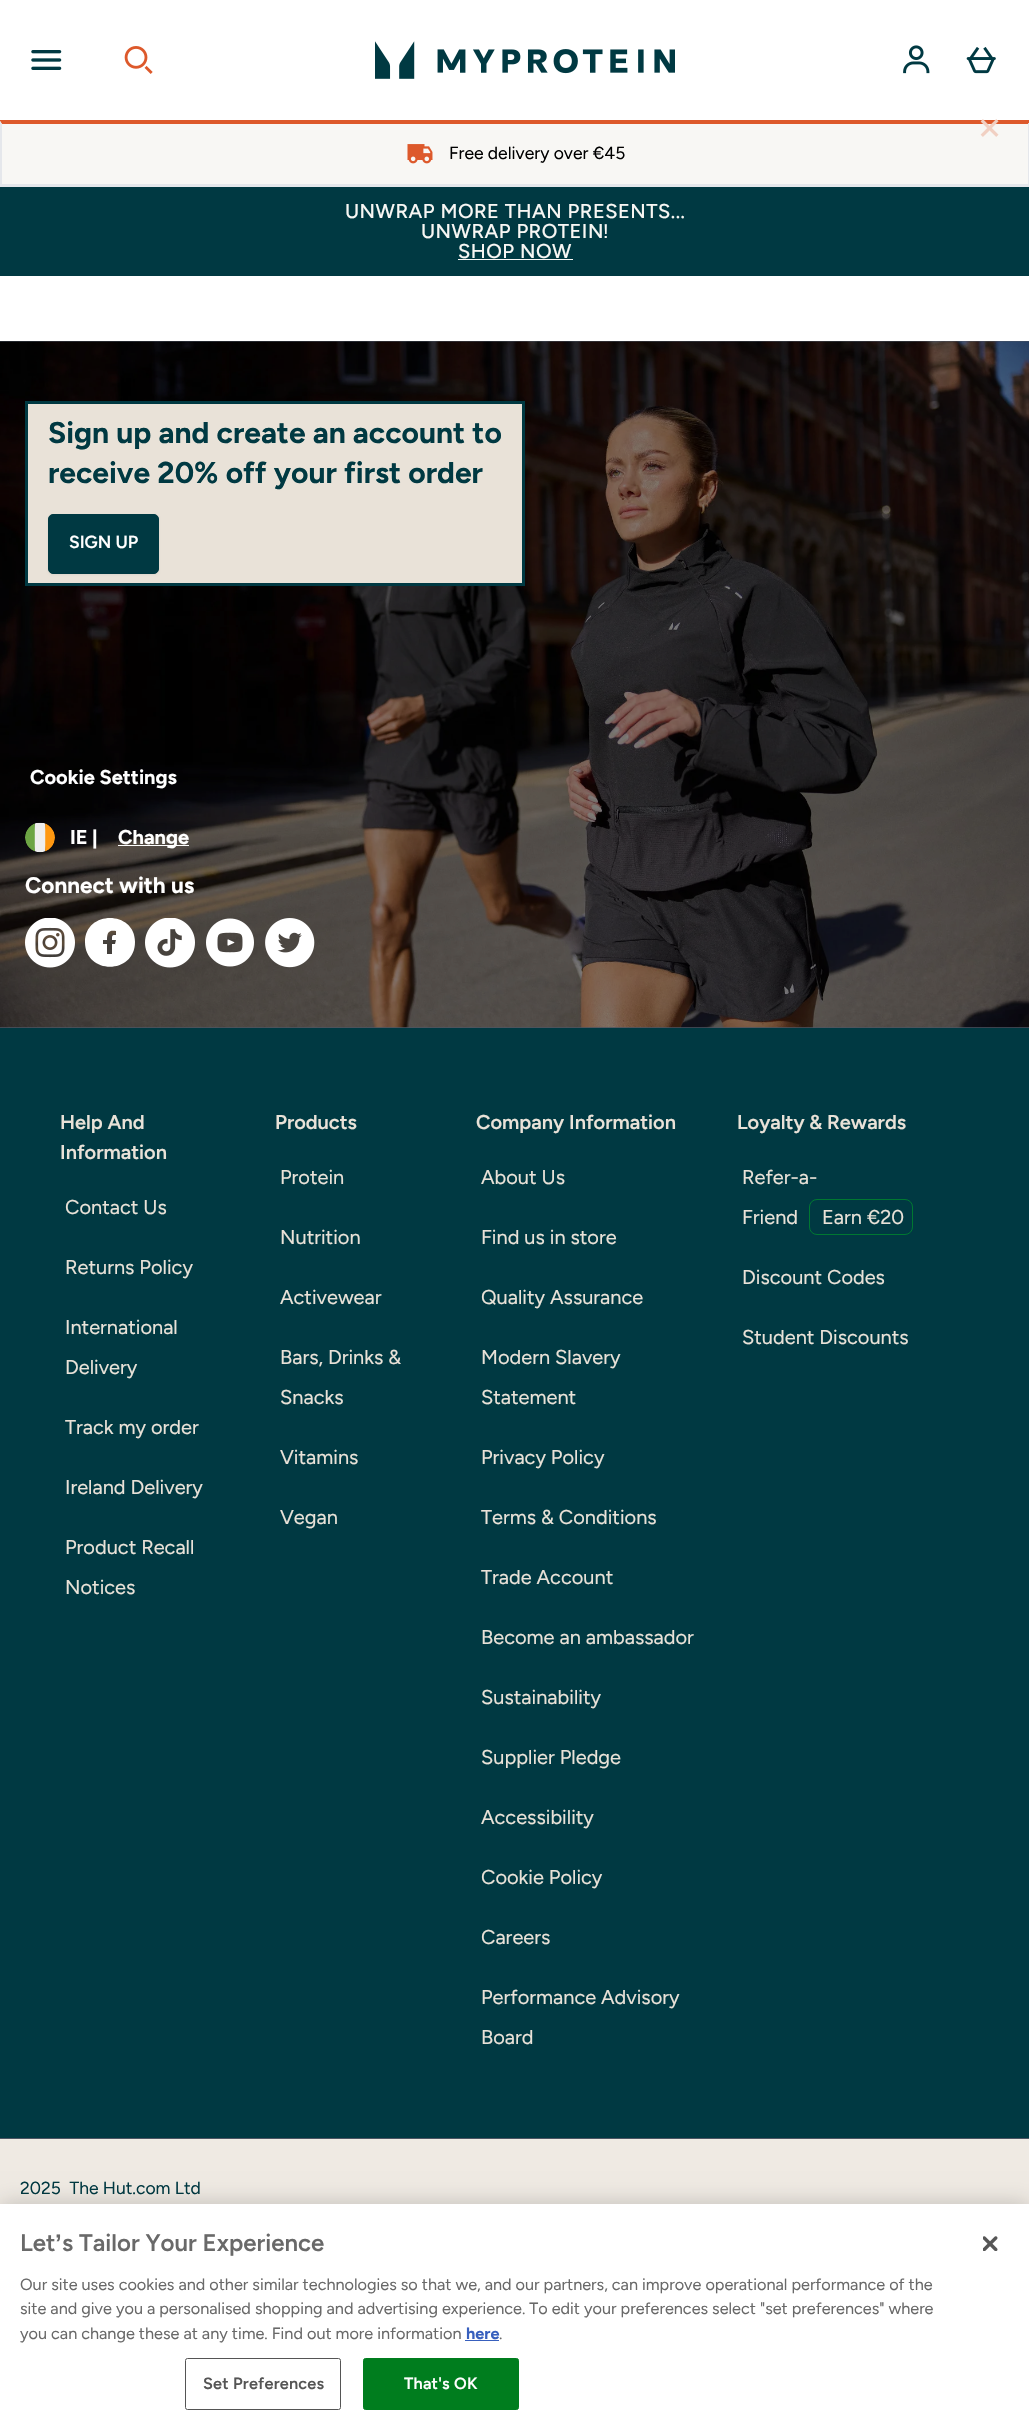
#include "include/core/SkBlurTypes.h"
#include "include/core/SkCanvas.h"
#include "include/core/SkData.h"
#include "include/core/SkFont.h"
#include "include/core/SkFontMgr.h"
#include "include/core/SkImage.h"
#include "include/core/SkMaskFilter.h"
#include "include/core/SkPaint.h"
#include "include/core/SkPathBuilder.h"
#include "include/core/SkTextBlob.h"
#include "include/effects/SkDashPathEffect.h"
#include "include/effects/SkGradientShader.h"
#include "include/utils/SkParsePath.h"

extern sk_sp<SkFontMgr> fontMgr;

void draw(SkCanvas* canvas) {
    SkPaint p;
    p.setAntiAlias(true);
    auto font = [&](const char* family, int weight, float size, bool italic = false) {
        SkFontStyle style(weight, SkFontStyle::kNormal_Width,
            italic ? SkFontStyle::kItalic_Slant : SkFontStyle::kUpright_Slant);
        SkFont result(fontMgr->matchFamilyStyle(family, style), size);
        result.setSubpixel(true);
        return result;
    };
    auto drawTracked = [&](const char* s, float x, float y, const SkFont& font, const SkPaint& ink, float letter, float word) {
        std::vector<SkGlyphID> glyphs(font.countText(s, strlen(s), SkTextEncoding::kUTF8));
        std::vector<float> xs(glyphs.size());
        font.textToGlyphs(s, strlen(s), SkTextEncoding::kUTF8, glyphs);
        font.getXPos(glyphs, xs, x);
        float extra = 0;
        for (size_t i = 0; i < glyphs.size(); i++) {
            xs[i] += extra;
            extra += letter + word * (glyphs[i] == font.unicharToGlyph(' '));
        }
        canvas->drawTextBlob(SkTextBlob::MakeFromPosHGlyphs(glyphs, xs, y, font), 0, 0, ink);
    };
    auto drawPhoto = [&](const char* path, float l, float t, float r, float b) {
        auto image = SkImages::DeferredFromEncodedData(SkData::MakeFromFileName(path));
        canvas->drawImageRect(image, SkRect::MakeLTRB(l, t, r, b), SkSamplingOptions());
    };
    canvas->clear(0xFFFFFFFF);
    p.setColor(0xFFDD592B);
    canvas->drawRect(SkRect::MakeLTRB(0, 120, 1029, 121), p);
    drawPhoto("media/1.png", 31, 50, 62, 70);
    drawPhoto("media/2.png", 124, 46, 153, 74);
    drawPhoto("media/3.png", 375, 41, 675, 79);
    drawPhoto("media/4.png", 903, 45, 930, 74);
    drawPhoto("media/5.png", 966, 47, 996, 74);
    p.setColor(0xFFF8F7F4);
    canvas->drawRect(SkRect::MakeLTRB(0, 121, 1029, 184), p);
    p.setColor(0xFFDD592B);
    canvas->drawPath(SkPathBuilder().moveTo(0, 121).lineTo(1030, 121).lineTo(1028, 124).lineTo(2, 124).close().detach(), p);
    auto font1 = font("DejaVu Sans", 400, 30);
    p.setColor(0xFFF1D0C2);
    canvas->drawString("✕", 977, 139, font1, p);
    p.setColor(0xFFE5E7EB);
    canvas->drawPath(SkPathBuilder().moveTo(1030, 121).lineTo(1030, 186).lineTo(1028, 184).lineTo(1028, 124).close().detach(), p);
    canvas->drawRect(SkRect::MakeLTRB(0, 184, 1029, 187), p);
    canvas->drawPath(SkPathBuilder().moveTo(0, 186).lineTo(0, 121).lineTo(2, 124).lineTo(2, 184).close().detach(), p);
    drawPhoto("media/6.png", 407, 144, 433, 164);
    auto font2 = font("Figtree", 400, 17.5f);
    p.setColor(0xFF000000);
    canvas->drawString("Free delivery over €45", 449, 159, font2, p);
    p.setColor(0xFF003942);
    canvas->drawRect(SkRect::MakeLTRB(0, 187, 1029, 276), p);
    auto font3 = font("Figtree", 500, 20);
    p.setColor(0xFFF8F7F4);
    drawTracked("UNWRAP MORE THAN PRESENTS...", 345, 218, font3, p, 0.5f, 0);
    drawTracked("UNWRAP PROTEIN", 421, 238, font3, p, 0.5f, 0);
    auto font4 = font("Liberation Sans", 400, 20);
    drawTracked("!", 603, 238, font4, p, 0.5f, 0);
    drawTracked("SHOP NOW", 458, 258, font3, p, 0.5f, 0);
    {
        const struct { float l, t, r, b; SkColor color; } items[] = {
            {458, 259, 573, 260, 0xFFF8F7F4},
            {0, 1028, 1029, 2138, 0xFF003942},
            {0, 2138, 1029, 2139, 0xFF4B5563},
            {0, 341, 1029, 1028, 0xFF4B5563},
        };
        for (auto [l, t, r, b, color] : items) {
            p.setColor(color);
            canvas->drawRect(SkRect::MakeLTRB(l, t, r, b), p);
        }
    }
    drawPhoto("media/7.png", 0, 341, 1029, 1028);
    p.setColor(0xFFE9E2D8);
    canvas->drawRect(SkRect::MakeLTRB(26.5f, 402.5f, 523.5f, 584.5f), p);
    p.setStyle(SkPaint::kStroke_Style);
    p.setStrokeWidth(3);
    p.setColor(0xFF003942);
    canvas->drawRect(SkRect::MakeLTRB(26.5f, 402.5f, 523.5f, 584.5f), p);
    auto font5 = font("Figtree", 700, 30);
    p.setStyle(SkPaint::kFill_Style);
    canvas->drawString("Sign up and create an account to", 48, 443, font5, p);
    canvas->drawString("receive 20% off your first order", 48, 483, font5, p);
    p.setColor(0x0D000000);
    p.setMaskFilter(SkMaskFilter::MakeBlur(kNormal_SkBlurStyle, 1));
    canvas->drawRoundRect(SkRect::MakeLTRB(48, 515, 159, 575), 5, 5, p);
    p.setMaskFilter(nullptr);
    p.setColor(0xFF003942);
    canvas->drawRoundRect(SkRect::MakeLTRB(48.5f, 514.5f, 158.5f, 573.5f), 4.5f, 4.5f, p);
    p.setStyle(SkPaint::kStroke_Style);
    p.setStrokeWidth(1);
    canvas->drawRoundRect(SkRect::MakeLTRB(48.5f, 514.5f, 158.5f, 573.5f), 4.5f, 4.5f, p);
    auto font6 = font("Figtree", 600, 17.5f);
    p.setStyle(SkPaint::kFill_Style);
    p.setColor(0xFFFFFFFF);
    canvas->drawString("SIGN UP", 69, 548, font6, p);
    auto font7 = font("Figtree", 700, 20);
    canvas->drawString("Cookie Settings", 30, 784, font7, p);
    drawPhoto("media/8.png", 25, 822, 55, 853);
    canvas->drawString("IE", 70, 844, font7, p);
    auto font8 = font("Liberation Sans", 700, 20);
    canvas->drawString("|", 92, 844, font8, p);
    canvas->drawRect(SkRect::MakeLTRB(118, 845, 189, 846), p);
    canvas->drawString("Change", 118, 844, font7, p);
    auto font9 = font("Figtree", 700, 22.5f);
    canvas->drawString("Connect with us", 25, 893, font9, p);
    drawPhoto("media/9.png", 25, 918, 75, 968);
    canvas->drawPath(SkPathBuilder(SkPathFillType::kEvenOdd).moveTo(135, 942).cubicTo(135, 975, 85, 975, 85, 942).cubicTo(85, 910, 135, 910, 135, 942).close().moveTo(115, 944).lineTo(116, 940).lineTo(112, 940).cubicTo(112, 935, 112, 935, 116, 935).lineTo(116, 931).cubicTo(109, 930, 107, 932, 107, 940).lineTo(103, 940).lineTo(103, 944).lineTo(107, 944).lineTo(107, 954).lineTo(112, 954).lineTo(112, 944).close().detach(), p);
    drawPhoto("media/10.png", 145, 918, 195, 968);
    drawPhoto("media/11.png", 206, 918, 254, 967);
    drawPhoto("media/12.png", 265, 918, 315, 968);
    auto font10 = font("Figtree", 600, 20);
    p.setColor(0xFFE9E2D8);
    canvas->drawString("Help And", 60, 1129, font10, p);
    canvas->drawString("Information", 60, 1159, font10, p);
    auto font11 = font("Figtree", 400, 20);
    {
        const struct { const char* s; float x, y; } items[] = {
            {"Contact Us", 65, 1214},
            {"Returns Policy", 65, 1274},
            {"International", 65, 1334},
            {"Delivery", 65, 1374},
            {"Track my order", 65, 1434},
            {"Ireland Delivery", 65, 1494},
            {"Product Recall", 65, 1554},
            {"Notices", 65, 1594},
        };
        for (auto [s, x, y] : items) {
            canvas->drawString(s, x, y, font11, p);
        }
    }
    canvas->drawString("Products", 275, 1129, font10, p);
    {
        const struct { const char* s; float x, y; } items[] = {
            {"Protein", 280, 1184},
            {"Nutrition", 280, 1244},
            {"Activewear", 280, 1304},
            {"Bars, Drinks &", 280, 1364},
            {"Snacks", 280, 1404},
            {"Vitamins", 280, 1464},
            {"Vegan", 280, 1524},
        };
        for (auto [s, x, y] : items) {
            canvas->drawString(s, x, y, font11, p);
        }
    }
    canvas->drawString("Company Information", 476, 1129, font10, p);
    {
        const struct { const char* s; float x, y; } items[] = {
            {"About Us", 481, 1184},
            {"Find us in store", 481, 1244},
            {"Quality Assurance", 481, 1304},
            {"Modern Slavery", 481, 1364},
            {"Statement", 481, 1404},
            {"Privacy Policy", 481, 1464},
            {"Terms & Conditions", 481, 1524},
            {"Trade Account", 481, 1584},
            {"Become an ambassador", 481, 1644},
            {"Sustainability", 481, 1704},
            {"Supplier Pledge", 481, 1764},
            {"Accessibility", 481, 1824},
            {"Cookie Policy", 481, 1884},
            {"Careers", 481, 1944},
            {"Performance Advisory", 481, 2004},
            {"Board", 481, 2044},
        };
        for (auto [s, x, y] : items) {
            canvas->drawString(s, x, y, font11, p);
        }
    }
    canvas->drawString("Loyalty & Rewards", 737, 1129, font10, p);
    canvas->drawString("Refer-a-", 742, 1184, font11, p);
    canvas->drawString("Friend", 742, 1224, font11, p);
    p.setStyle(SkPaint::kStroke_Style);
    p.setColor(0xFF007831);
    canvas->drawRoundRect(SkRect::MakeLTRB(809.5f, 1199.5f, 912.5f, 1234.5f), 7.5f, 7.5f, p);
    p.setStyle(SkPaint::kFill_Style);
    p.setColor(0xFFE9E2D8);
    {
        const struct { const char* s; float x, y; } items[] = {
            {"Earn €20", 822, 1224},
            {"Discount Codes", 742, 1284},
            {"Student Discounts", 742, 1344},
        };
        for (auto [s, x, y] : items) {
            canvas->drawString(s, x, y, font11, p);
        }
    }
    p.setColor(0xFFEFEAE3);
    canvas->drawRect(SkRect::MakeLTRB(0, 2139, 1029, 2204), p);
    p.setColor(0xFF003942);
    canvas->drawString("2025  The Hut.com Ltd", 20, 2194, font2, p);
    p.setColor(0x33000000);
    p.setMaskFilter(SkMaskFilter::MakeBlur(kNormal_SkBlurStyle, 11));
    canvas->drawRect(SkRect::MakeLTRB(0, 2204, 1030, 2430), p);
    p.setMaskFilter(nullptr);
    p.setColor(0xFFFFFFFF);
    canvas->drawRect(SkRect::MakeLTRB(0, 2204, 1029, 2429), p);
    auto font12 = font("Figtree", 600, 24);
    p.setColor(0xFF696969);
    canvas->drawString("Let", 20, 2251, font12, p);
    auto font13 = font("Liberation Sans", 700, 24);
    canvas->drawString("’", 55, 2251, font13, p);
    canvas->drawString("s Tailor Your Experience", 62, 2251, font12, p);
    auto font14 = font("Figtree", 400, 16.25f);
    {
        const struct { const char* s; float x, y; } items[] = {
            {"Our site uses cookies and other similar technologies so that we, and our partners, can improve operational performance of the", 20, 2290},
            {"site and give you a personalised shopping and advertising experience. To edit your preferences select \"set preferences\" where", 20, 2314},
            {"you can change these at any time. Find out more information", 20, 2339},
        };
        for (auto [s, x, y] : items) {
            canvas->drawString(s, x, y, font14, p);
        }
    }
    auto font15 = font("Figtree", 700, 16.25f);
    p.setColor(0xFF3860BE);
    canvas->drawString("here", 466, 2339, font15, p);
    canvas->drawRect(SkRect::MakeLTRB(465, 2340, 499, 2341), p);
    p.setColor(0xFF696969);
    canvas->drawString(".", 499, 2339, font14, p);
    p.setStyle(SkPaint::kStroke_Style);
    p.setColor(0xFF555555);
    canvas->drawRoundRect(SkRect::MakeLTRB(185.5f, 2358.5f, 340.5f, 2409.5f), 2, 2, p);
    auto font16 = font("Figtree", 600, 16.25f);
    p.setStyle(SkPaint::kFill_Style);
    drawTracked("Set Preferences", 203, 2389, font16, p, 0.2f, 0);
    p.setColor(0xFF007D1E);
    canvas->drawRoundRect(SkRect::MakeLTRB(363.5f, 2358.5f, 518.5f, 2409.5f), 2, 2, p);
    p.setStyle(SkPaint::kStroke_Style);
    canvas->drawRoundRect(SkRect::MakeLTRB(363.5f, 2358.5f, 518.5f, 2409.5f), 2, 2, p);
    p.setStyle(SkPaint::kFill_Style);
    p.setColor(0xFFFFFFFF);
    drawTracked("That's OK", 404, 2389, font16, p, 0.2f, 0);
    drawPhoto("media/13.png", 983, 2236, 998, 2251);
}
